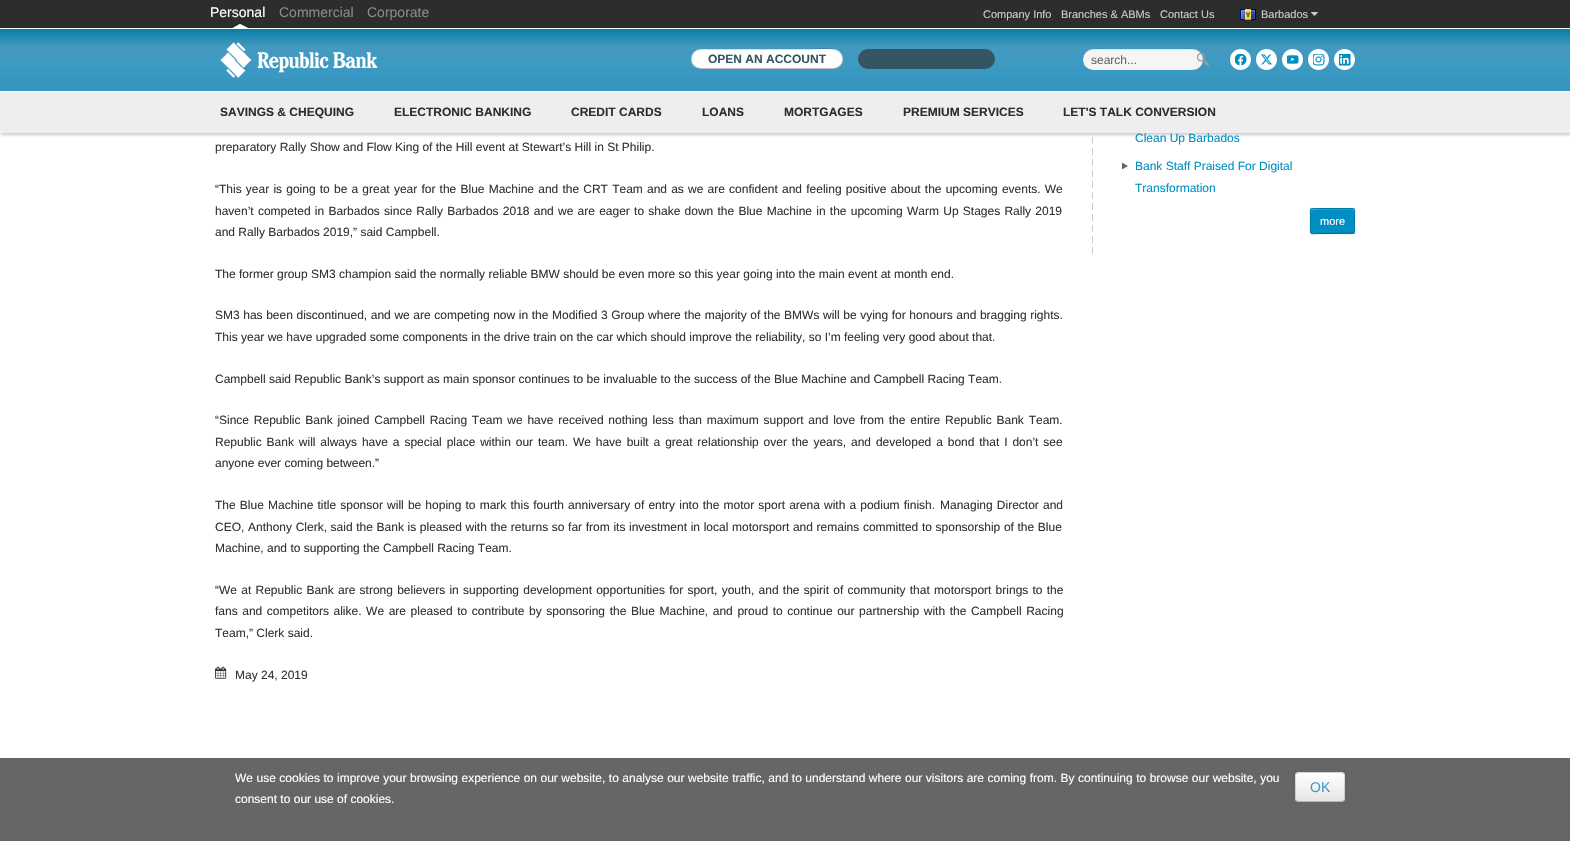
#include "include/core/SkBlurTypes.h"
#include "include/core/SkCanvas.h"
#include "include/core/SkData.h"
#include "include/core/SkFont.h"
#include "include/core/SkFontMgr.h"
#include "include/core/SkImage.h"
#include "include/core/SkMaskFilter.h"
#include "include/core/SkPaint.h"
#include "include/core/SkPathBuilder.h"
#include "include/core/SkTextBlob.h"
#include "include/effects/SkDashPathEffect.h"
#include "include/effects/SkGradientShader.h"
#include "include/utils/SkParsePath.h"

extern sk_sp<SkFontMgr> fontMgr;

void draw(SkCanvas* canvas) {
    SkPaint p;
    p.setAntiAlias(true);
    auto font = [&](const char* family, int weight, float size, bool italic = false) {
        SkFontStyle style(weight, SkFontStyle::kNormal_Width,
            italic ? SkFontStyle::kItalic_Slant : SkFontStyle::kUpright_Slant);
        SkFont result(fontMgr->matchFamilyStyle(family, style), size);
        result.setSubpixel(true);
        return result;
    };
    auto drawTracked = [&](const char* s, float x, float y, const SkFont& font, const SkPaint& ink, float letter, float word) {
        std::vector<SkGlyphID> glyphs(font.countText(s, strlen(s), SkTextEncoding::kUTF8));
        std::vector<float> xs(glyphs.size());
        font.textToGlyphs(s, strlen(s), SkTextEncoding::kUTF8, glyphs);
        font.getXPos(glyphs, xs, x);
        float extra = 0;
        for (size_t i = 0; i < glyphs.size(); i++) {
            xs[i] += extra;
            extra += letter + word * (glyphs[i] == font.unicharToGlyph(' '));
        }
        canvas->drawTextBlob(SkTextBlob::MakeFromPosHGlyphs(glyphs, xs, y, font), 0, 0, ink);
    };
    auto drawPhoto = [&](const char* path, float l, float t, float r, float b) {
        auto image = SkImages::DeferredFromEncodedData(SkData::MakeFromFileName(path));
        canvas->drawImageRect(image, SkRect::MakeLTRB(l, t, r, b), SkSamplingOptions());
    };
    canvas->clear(0xFFFFFFFF);
    p.setColor(0xFF2D2D2D);
    canvas->drawRect(SkRect::MakeLTRB(0, 0, 1570, 28), p);
    drawPhoto("media/1.png", 232, 24, 248, 28);
    auto font1 = font("Liberation Sans", 400, 14);
    p.setColor(0xFFFFFFFF);
    canvas->drawString("Personal", 210, 17, font1, p);
    p.setColor(0xFF888888);
    canvas->drawString("Commercial", 279, 17, font1, p);
    canvas->drawString("Corporate", 367, 17, font1, p);
    auto font2 = font("Liberation Sans", 400, 11);
    p.setColor(0xFFCCCCCC);
    {
        const struct { const char* s; float x, y; } items[] = {
            {"Company Info", 983, 18},
            {"Branches & ABMs", 1061, 18},
            {"Contact Us", 1160, 18},
        };
        for (auto [s, x, y] : items) {
            canvas->drawString(s, x, y, font2, p);
        }
    }
    drawPhoto("media/2.png", 1240, 9, 1256, 20);
    canvas->drawString("Barbados", 1261, 18, font2, p);
    drawPhoto("media/3.png", 1311, 12, 1318, 16);
    drawPhoto("media/13.png", 1092, 137, 1093, 254);
    p.setColor(0x33000000);
    p.setMaskFilter(SkMaskFilter::MakeBlur(kNormal_SkBlurStyle, 1.5f));
    canvas->drawRect(SkRect::MakeLTRB(1, 94, 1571, 135), p);
    p.setMaskFilter(nullptr);
    drawPhoto("media/4.png", 0, 29, 1570, 91);
    drawPhoto("media/5.png", 220, 42, 378, 78);
    p.setColor(0xFFFFFFFF);
    canvas->drawRoundRect(SkRect::MakeLTRB(691, 49, 843, 69), 10, 10, p);
    canvas->drawPath(SkPathBuilder().moveTo(701, 51).lineTo(833, 51).cubicTo(838, 51, 842, 55, 842, 59).cubicTo(843, 45, 816, 50, 811, 50).lineTo(723, 50).cubicTo(718, 50, 691, 45, 692, 59).cubicTo(692, 55, 696, 51, 701, 51).close().detach(), p);
    p.setStyle(SkPaint::kStroke_Style);
    p.setStrokeWidth(1);
    p.setColor(0x40000000);
    canvas->drawPath(SkPathBuilder().moveTo(839.5f, 65.5f).cubicTo(838, 67.5f, 835.5f, 68.5f, 833, 68.5f).lineTo(701, 68.5f).cubicTo(698.5f, 68.5f, 696, 67.5f, 694.5f, 65.5f).detach(), p);
    p.setColor(0x26000000);
    canvas->drawPath(SkPathBuilder().moveTo(694.5f, 65.5f).cubicTo(688.5f, 60, 692.5f, 49.5f, 701, 49.5f).lineTo(811, 49.5f).cubicTo(816.5f, 49.5f, 837.5f, 45, 842, 55.5f).cubicTo(843, 59, 842.5f, 63, 839.5f, 65.5f).detach(), p);
    auto font3 = font("Liberation Sans", 700, 12);
    p.setStyle(SkPaint::kFill_Style);
    p.setColor(0xFF345564);
    canvas->drawString("OPEN AN ACCOUNT", 708, 63, font3, p);
    canvas->drawRoundRect(SkRect::MakeLTRB(858, 49, 995, 69), 10, 10, p);
    p.setColor(0xFFF5F5F5);
    canvas->drawRoundRect(SkRect::MakeLTRB(1083, 49, 1203, 70), 10.5f, 10.5f, p);
    p.setColor(0x12000000);
    canvas->drawPath(SkPathBuilder().moveTo(1094, 50).lineTo(1192, 50).cubicTo(1198, 50, 1203, 55, 1203, 60).cubicTo(1203, 45, 1184, 49, 1176, 49).lineTo(1110, 49).cubicTo(1102, 49, 1083, 45, 1083, 60).cubicTo(1083, 55, 1088, 50, 1094, 50).close().detach(), p);
    auto font4 = font("Liberation Sans", 400, 12);
    p.setColor(0xFF666666);
    canvas->drawString("search...", 1091, 64, font4, p);
    drawPhoto("media/6.png", 1197, 53, 1209, 66);
    drawPhoto("media/7.png", 1230, 49, 1251, 70);
    drawPhoto("media/8.png", 1256, 49, 1277, 70);
    drawPhoto("media/9.png", 1282, 49, 1303, 70);
    drawPhoto("media/10.png", 1308, 49, 1329, 70);
    drawPhoto("media/11.png", 1334, 49, 1355, 70);
    p.setColor(0xFFEEEEEE);
    canvas->drawRect(SkRect::MakeLTRB(0, 92, 1570, 133), p);
    p.setColor(0xFF2D2D2D);
    {
        const struct { const char* s; float x, y; } items[] = {
            {"SAVINGS & CHEQUING", 220, 116},
            {"ELECTRONIC BANKING", 394, 116},
            {"CREDIT CARDS", 571, 116},
            {"LOANS", 702, 116},
            {"MORTGAGES", 784, 116},
            {"PREMIUM SERVICES", 903, 116},
            {"LET'S TALK CONVERSION", 1063, 116},
        };
        for (auto [s, x, y] : items) {
            canvas->drawString(s, x, y, font3, p);
        }
    }
    p.setColor(0xFF333333);
    canvas->drawString("preparatory Rally Show and Flow King of the Hill event at Stewart’s Hill in St Philip.", 215, 151, font4, p);
    drawTracked("“This year is going to be a great year for the Blue Machine and the CRT Team and as we are confident and feeling positive about the upcoming events. We", 215, 193, font4, p, 0, 0.85f);
    drawTracked("haven’t competed in Barbados since Rally Barbados 2018 and we are eager to shake down the Blue Machine in the upcoming Warm Up Stages Rally 2019", 215, 215, font4, p, 0, 0.9f);
    canvas->drawString("and Rally Barbados 2019,” said Campbell.", 215, 236, font4, p);
    canvas->drawString("The former group SM3 champion said the normally reliable BMW should be even more so this year going into the main event at month end.", 215, 278, font4, p);
    drawTracked("SM3 has been discontinued, and we are competing now in the Modified 3 Group where the majority of the BMWs will be vying for honours and bragging rights.", 215, 319, font4, p, 0, 0.25f);
    canvas->drawString("This year we have upgraded some components in the drive train on the car which should improve the reliability, so I’m feeling very good about that.", 215, 341, font4, p);
    canvas->drawString("Campbell said Republic Bank’s support as main sponsor continues to be invaluable to the success of the Blue Machine and Campbell Racing Team.", 215, 383, font4, p);
    drawTracked("“Since Republic Bank joined Campbell Racing Team we have received nothing less than maximum support and love from the entire Republic Bank Team.", 215, 424, font4, p, 0, 1.45f);
    drawTracked("Republic Bank will always have a special place within our team. We have built a great relationship over the years, and developed a bond that I don’t see", 215, 446, font4, p, 0, 1.55f);
    canvas->drawString("anyone ever coming between.”", 215, 467, font4, p);
    drawTracked("The Blue Machine title sponsor will be hoping to mark this fourth anniversary of entry into the motor sport arena with a podium finish.", 215, 509, font4, p, 0, 0.8f);
    drawTracked("Managing Director and", 940, 509, font4, p, 0, 0.8f);
    drawTracked("CEO, Anthony Clerk, said the Bank is pleased with the returns so far from its investment in local motorsport and remains committed to sponsorship of the Blue", 215, 531, font4, p, 0, 0.3f);
    canvas->drawString("Machine, and to supporting the Campbell Racing Team.", 215, 552, font4, p);
    drawTracked("“We at Republic Bank are strong believers in supporting development opportunities for sport, youth, and the spirit of community that motorsport brings to the", 215, 594, font4, p, 0, 0.9f);
    drawTracked("fans and competitors alike. We are pleased to contribute by sponsoring the Blue Machine, and proud to continue our partnership with the Campbell Racing", 215, 615, font4, p, 0, 1.25f);
    canvas->drawString("Team,” Clerk said.", 215, 637, font4, p);
    drawPhoto("media/12.png", 215, 666, 227, 679);
    canvas->drawString("May 24, 2019", 235, 679, font4, p);
    p.setColor(0xFF008FC3);
    canvas->drawString("Clean Up Barbados", 1135, 142, font4, p);
    drawPhoto("media/14.png", 1122, 162, 1128, 170);
    canvas->drawString("Bank Staff Praised For Digital", 1135, 170, font4, p);
    canvas->drawString("Transformation", 1135, 192, font4, p);
    p.setColor(0x0D000000);
    p.setMaskFilter(SkMaskFilter::MakeBlur(kNormal_SkBlurStyle, 1));
    canvas->drawRoundRect(SkRect::MakeLTRB(1310, 209, 1355, 235), 2, 2, p);
    p.setMaskFilter(nullptr);
    p.setColor(0xFF008FC3);
    canvas->drawRoundRect(SkRect::MakeLTRB(1310, 208, 1355, 234), 2, 2, p);
    p.setColor(0xFF33A5CF);
    canvas->drawPath(SkPathBuilder(SkPathFillType::kEvenOdd).moveTo(1312, 210).cubicTo(1315, 210, 1352, 209, 1353, 210).lineTo(1354, 213).cubicTo(1354, 207, 1354, 209, 1346, 209).lineTo(1319, 209).cubicTo(1313, 209, 1311, 207, 1311, 212).close().moveTo(1354, 232).lineTo(1354, 232).close().moveTo(1311, 232).lineTo(1311, 231).close().detach(), p);
    p.setStyle(SkPaint::kStroke_Style);
    p.setColor(0x40000000);
    canvas->drawPath(SkPathBuilder().moveTo(1354, 233).lineTo(1319, 233.5f).cubicTo(1316, 233.5f, 1313, 235, 1311, 233).detach(), p);
    p.setColor(0x26000000);
    canvas->drawPath(SkPathBuilder().moveTo(1311, 233).cubicTo(1309.5f, 231.5f, 1310.5f, 223, 1310.5f, 221).cubicTo(1310.5f, 207.5f, 1307.5f, 208.5f, 1319, 208.5f).lineTo(1346, 208.5f).cubicTo(1357.5f, 208.5f, 1354.5f, 207.5f, 1354.5f, 221).cubicTo(1354.5f, 223, 1355.5f, 231.5f, 1354, 233).detach(), p);
    p.setStyle(SkPaint::kFill_Style);
    p.setColor(0xFFFFFFFF);
    canvas->drawString("more", 1320, 225, font2, p);
    p.setColor(0xFF666666);
    canvas->drawRect(SkRect::MakeLTRB(0, 758, 1570, 841), p);
    p.setColor(0xFFFFFFFF);
    drawTracked("We use cookies to improve your browsing experience on our website, to analyse our website traffic, and to understand where our visitors are coming from. By continuing to browse our website, you", 235, 782, font4, p, 0, 0.15f);
    canvas->drawString("consent to our use of cookies.", 235, 803, font4, p);
    p.setColor(0xFFF5F5F5);
    canvas->drawRoundRect(SkRect::MakeLTRB(1295, 772, 1345, 802), 4, 4, p);
    canvas->save();
    canvas->clipPath(SkPathBuilder().moveTo(1299, 772).lineTo(1341, 772).cubicTo(1343, 772, 1345, 774, 1345, 776).lineTo(1345, 798).cubicTo(1345, 800, 1343, 802, 1341, 802).lineTo(1299, 802).cubicTo(1297, 802, 1295, 800, 1295, 798).lineTo(1295, 776).cubicTo(1295, 774, 1297, 772, 1299, 772).close().detach(), true);
    {
        const SkColor colors[] = {0xFFFFFFFF, 0xFFE6E6E6};
        const float stops[] = {0, 1};
        const SkPoint ends[] = {{1320, 773}, {1320, 801}};
        p.setShader(SkGradientShader::MakeLinear(ends, colors, stops, 2, SkTileMode::kClamp));
        p.setAlpha(255);
    }
    canvas->drawRect(SkRect::MakeLTRB(1295, 773, 1345, 801), p);
    canvas->restore();
    p.setShader(nullptr);
    p.setColor(0xFFFFFFFF);
    canvas->drawPath(SkPathBuilder().moveTo(1299, 774).lineTo(1341, 774).cubicTo(1343, 774, 1344, 775, 1344, 777).cubicTo(1344, 771, 1338, 773, 1334, 773).lineTo(1306, 773).cubicTo(1302, 773, 1296, 771, 1296, 777).cubicTo(1296, 775, 1297, 774, 1299, 774).close().detach(), p);
    p.setStyle(SkPaint::kStroke_Style);
    p.setColor(0x40000000);
    canvas->drawPath(SkPathBuilder().moveTo(1343.5f, 800.5f).cubicTo(1343, 801, 1342, 801.5f, 1341, 801.5f).lineTo(1299, 801.5f).cubicTo(1298, 801.5f, 1297, 801, 1296.5f, 800.5f).detach(), p);
    p.setColor(0x26000000);
    canvas->drawPath(SkPathBuilder().moveTo(1296.5f, 800.5f).cubicTo(1294.5f, 798.5f, 1295.5f, 790, 1295.5f, 787).cubicTo(1295.5f, 773, 1292.5f, 772.5f, 1306, 772.5f).lineTo(1334, 772.5f).cubicTo(1347.5f, 772.5f, 1344.5f, 773, 1344.5f, 787).cubicTo(1344.5f, 790, 1345.5f, 798.5f, 1343.5f, 800.5f).detach(), p);
    p.setStyle(SkPaint::kFill_Style);
    p.setColor(0xFF3F9AC2);
    canvas->drawString("OK", 1310, 792, font1, p);
}
